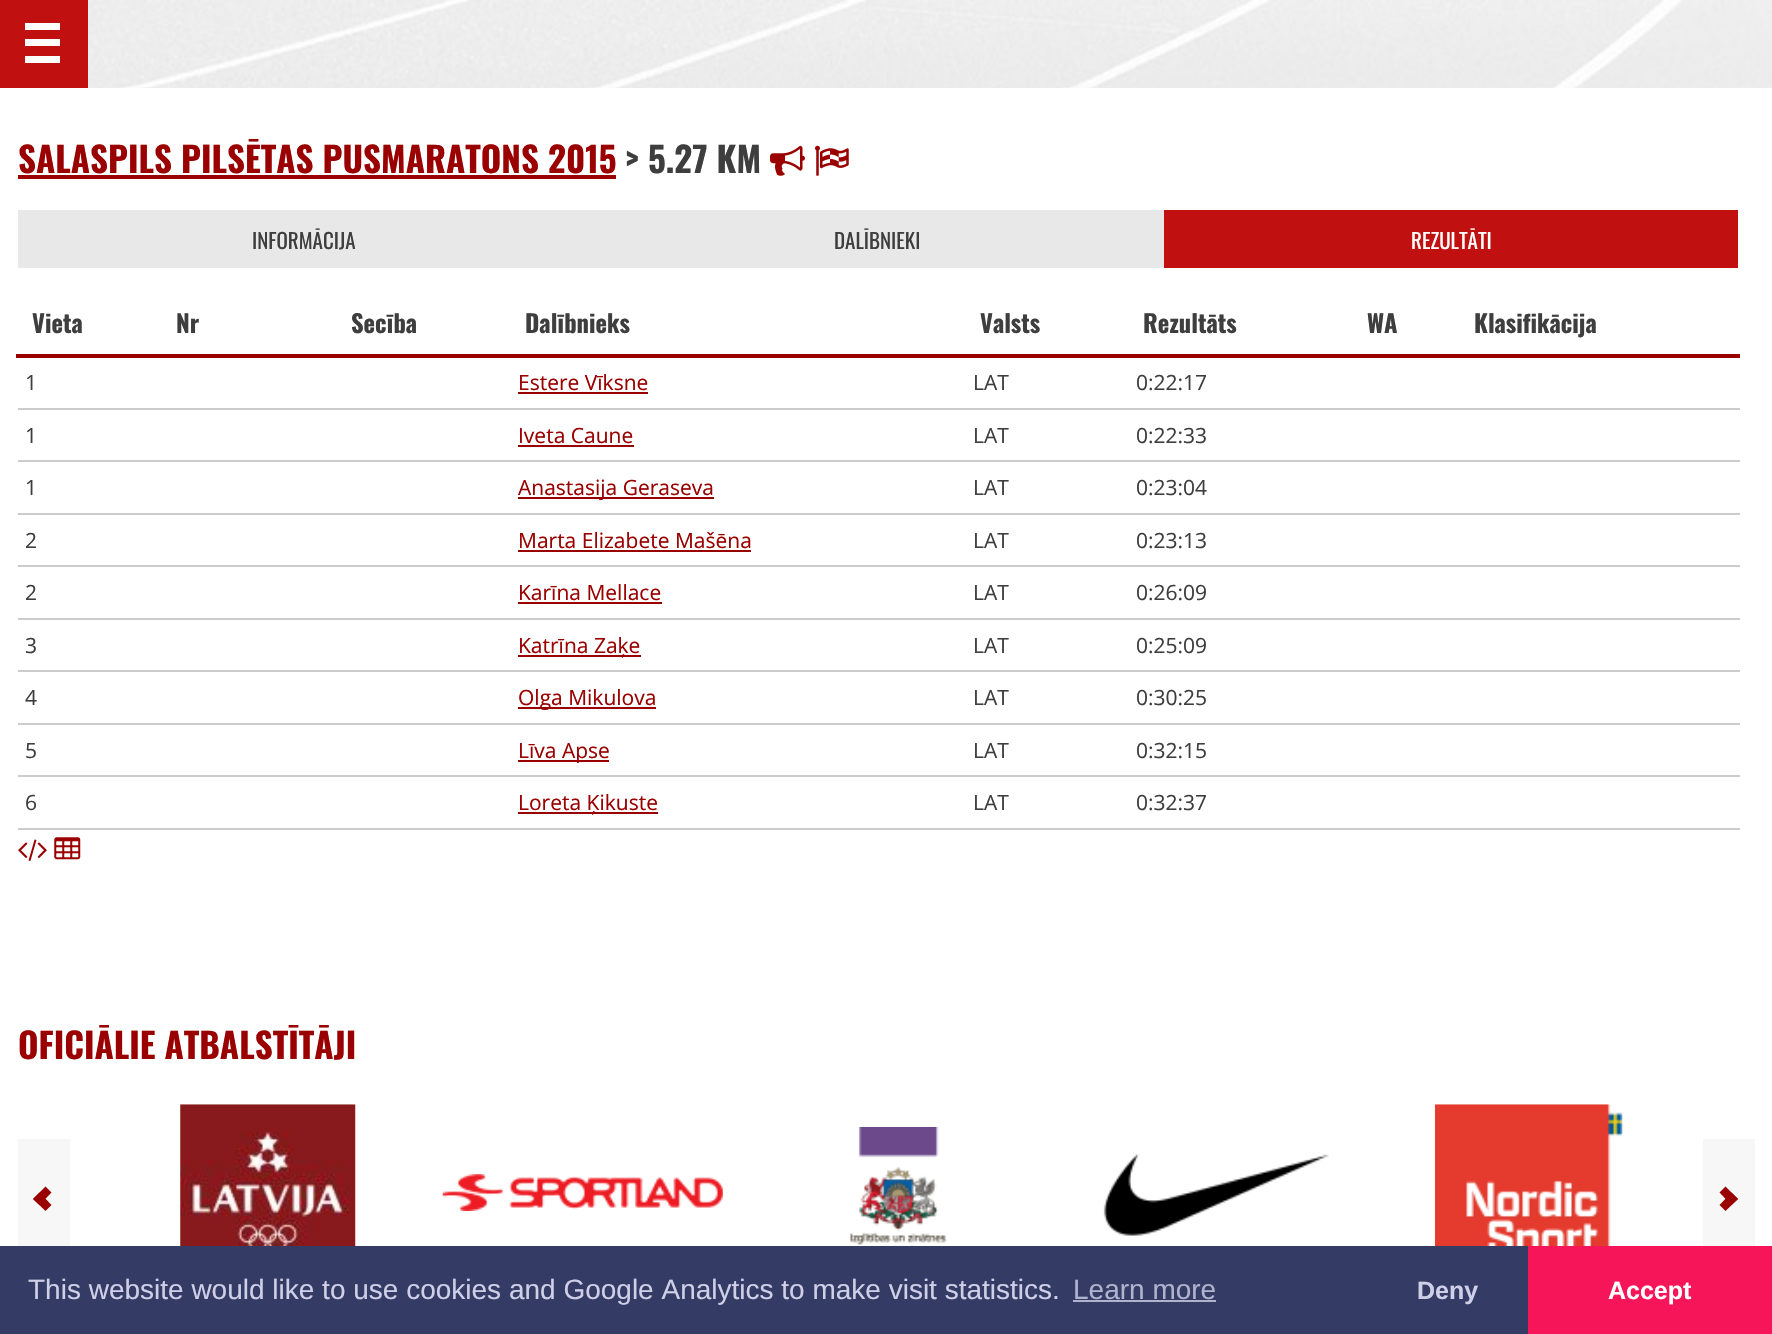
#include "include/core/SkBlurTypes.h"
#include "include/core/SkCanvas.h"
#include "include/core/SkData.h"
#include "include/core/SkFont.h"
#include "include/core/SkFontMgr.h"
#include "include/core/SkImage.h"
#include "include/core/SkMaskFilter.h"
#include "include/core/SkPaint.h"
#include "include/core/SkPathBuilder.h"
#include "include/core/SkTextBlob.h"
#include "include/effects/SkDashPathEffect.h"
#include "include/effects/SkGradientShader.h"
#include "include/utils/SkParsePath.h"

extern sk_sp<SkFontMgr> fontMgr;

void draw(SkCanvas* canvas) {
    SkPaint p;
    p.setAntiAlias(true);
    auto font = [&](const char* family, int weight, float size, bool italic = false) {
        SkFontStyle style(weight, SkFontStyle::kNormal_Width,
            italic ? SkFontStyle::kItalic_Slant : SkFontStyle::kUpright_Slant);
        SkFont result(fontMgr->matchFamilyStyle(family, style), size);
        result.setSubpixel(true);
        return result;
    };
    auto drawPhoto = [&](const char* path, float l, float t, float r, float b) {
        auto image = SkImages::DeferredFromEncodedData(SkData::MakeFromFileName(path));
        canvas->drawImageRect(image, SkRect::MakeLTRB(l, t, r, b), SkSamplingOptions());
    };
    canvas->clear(0xFFFFFFFF);
    drawPhoto("media/1.png", 88, 0, 1772, 88);
    drawPhoto("media/2.png", 88, 0, 1681, 88);
    {
        const struct { float l, t, r, b; SkColor color; } items[] = {
            {0, 0, 88, 88, 0xFFC01010},
            {25, 23, 60, 30, 0xFFFFFFFF},
            {25, 39, 60, 46, 0xFFFFFFFF},
            {25, 56, 60, 63, 0xFFFFFFFF},
        };
        for (auto [l, t, r, b, color] : items) {
            p.setColor(color);
            canvas->drawRect(SkRect::MakeLTRB(l, t, r, b), p);
        }
    }
    auto font1 = font("Oswald", 700, 35);
    p.setColor(0xFF9A0000);
    canvas->drawString("SALASPILS PILSĒTAS PUSMARATONS 2015", 18, 173, font1, p);
    canvas->drawRect(SkRect::MakeLTRB(18, 175, 616, 179), p);
    p.setColor(0xFF3E3E3E);
    canvas->drawString("> 5.27 KM", 625, 173, font1, p);
    drawPhoto("media/3.png", 770, 145, 805, 176);
    drawPhoto("media/4.png", 815, 145, 849, 176);
    p.setColor(0xFFE8E8E8);
    canvas->drawRect(SkRect::MakeLTRB(18, 210, 1164, 268), p);
    auto font2 = font("Oswald", 400, 21);
    p.setColor(0xFF3E3E3E);
    canvas->drawString("INFORMĀCIJA", 252, 249, font2, p);
    canvas->drawString("DALĪBNIEKI", 834, 249, font2, p);
    p.setColor(0xFFC01010);
    canvas->drawRect(SkRect::MakeLTRB(1164, 210, 1738, 268), p);
    p.setColor(0xFFFFFFFF);
    canvas->drawString("REZULTĀTI", 1411, 249, font2, p);
    auto font3 = font("Oswald", 700, 24.5f);
    p.setColor(0xFF3E3E3E);
    {
        const struct { const char* s; float x, y; } items[] = {
            {"Vieta", 32, 333},
            {"Nr", 176, 333},
            {"Secība", 351, 333},
            {"Dalībnieks", 525, 333},
            {"Valsts", 980, 333},
            {"Rezultāts", 1143, 333},
            {"WA", 1367, 333},
        };
        for (auto [s, x, y] : items) {
            canvas->drawString(s, x, y, font3, p);
        }
    }
    p.setColor(0xFF9A0000);
    canvas->drawRect(SkRect::MakeLTRB(16, 354, 1740, 358), p);
    p.setColor(0xFF3E3E3E);
    canvas->drawString("Klasifikācija", 1474, 333, font3, p);
    auto font4 = font("Open Sans", 400, 21);
    canvas->drawString("1", 25, 390, font4, p);
    p.setColor(0xFF9A0000);
    canvas->drawString("Estere Vīksne", 518, 390, font4, p);
    canvas->drawRect(SkRect::MakeLTRB(518, 392, 648, 394), p);
    p.setColor(0xFF3E3E3E);
    canvas->drawString("LAT", 973, 390, font4, p);
    canvas->drawString("0:22:17", 1136, 390, font4, p);
    p.setColor(0xFFCCCCCC);
    canvas->drawRect(SkRect::MakeLTRB(18, 408, 1740, 410), p);
    p.setColor(0xFF3E3E3E);
    canvas->drawString("1", 25, 443, font4, p);
    p.setColor(0xFF9A0000);
    canvas->drawString("Iveta Caune", 518, 443, font4, p);
    canvas->drawRect(SkRect::MakeLTRB(518, 445, 634, 447), p);
    p.setColor(0xFF3E3E3E);
    canvas->drawString("LAT", 973, 443, font4, p);
    canvas->drawString("0:22:33", 1136, 443, font4, p);
    p.setColor(0xFFCCCCCC);
    canvas->drawRect(SkRect::MakeLTRB(18, 460, 1740, 462), p);
    p.setColor(0xFF3E3E3E);
    canvas->drawString("1", 25, 495, font4, p);
    p.setColor(0xFF9A0000);
    canvas->drawRect(SkRect::MakeLTRB(518, 497, 714, 499), p);
    canvas->drawString("Anastasija Geraseva", 518, 495, font4, p);
    p.setColor(0xFF3E3E3E);
    canvas->drawString("LAT", 973, 495, font4, p);
    canvas->drawString("0:23:04", 1136, 495, font4, p);
    p.setColor(0xFFCCCCCC);
    canvas->drawRect(SkRect::MakeLTRB(18, 513, 1740, 515), p);
    p.setColor(0xFF3E3E3E);
    canvas->drawString("2", 25, 548, font4, p);
    p.setColor(0xFF9A0000);
    canvas->drawString("Marta Elizabete Mašēna", 518, 548, font4, p);
    canvas->drawRect(SkRect::MakeLTRB(518, 550, 751, 552), p);
    p.setColor(0xFF3E3E3E);
    canvas->drawString("LAT", 973, 548, font4, p);
    canvas->drawString("0:23:13", 1136, 548, font4, p);
    p.setColor(0xFFCCCCCC);
    canvas->drawRect(SkRect::MakeLTRB(18, 565, 1740, 567), p);
    p.setColor(0xFF3E3E3E);
    canvas->drawString("2", 25, 600, font4, p);
    p.setColor(0xFF9A0000);
    canvas->drawString("Karīna Mellace", 518, 600, font4, p);
    canvas->drawRect(SkRect::MakeLTRB(518, 602, 662, 604), p);
    p.setColor(0xFF3E3E3E);
    canvas->drawString("LAT", 973, 600, font4, p);
    canvas->drawString("0:26:09", 1136, 600, font4, p);
    p.setColor(0xFFCCCCCC);
    canvas->drawRect(SkRect::MakeLTRB(18, 618, 1740, 620), p);
    p.setColor(0xFF3E3E3E);
    canvas->drawString("3", 25, 653, font4, p);
    p.setColor(0xFF9A0000);
    canvas->drawRect(SkRect::MakeLTRB(518, 655, 641, 657), p);
    canvas->drawString("Katrīna Zaķe", 518, 653, font4, p);
    p.setColor(0xFF3E3E3E);
    canvas->drawString("LAT", 973, 653, font4, p);
    canvas->drawString("0:25:09", 1136, 653, font4, p);
    p.setColor(0xFFCCCCCC);
    canvas->drawRect(SkRect::MakeLTRB(18, 670, 1740, 672), p);
    p.setColor(0xFF3E3E3E);
    canvas->drawString("4", 25, 705, font4, p);
    p.setColor(0xFF9A0000);
    canvas->drawRect(SkRect::MakeLTRB(518, 707, 656, 709), p);
    canvas->drawString("Olga Mikulova", 518, 705, font4, p);
    p.setColor(0xFF3E3E3E);
    canvas->drawString("LAT", 973, 705, font4, p);
    canvas->drawString("0:30:25", 1136, 705, font4, p);
    p.setColor(0xFFCCCCCC);
    canvas->drawRect(SkRect::MakeLTRB(18, 723, 1740, 725), p);
    p.setColor(0xFF3E3E3E);
    canvas->drawString("5", 25, 758, font4, p);
    p.setColor(0xFF9A0000);
    canvas->drawRect(SkRect::MakeLTRB(518, 760, 609, 762), p);
    canvas->drawString("Līva Apse", 518, 758, font4, p);
    p.setColor(0xFF3E3E3E);
    canvas->drawString("LAT", 973, 758, font4, p);
    canvas->drawString("0:32:15", 1136, 758, font4, p);
    p.setColor(0xFFCCCCCC);
    canvas->drawRect(SkRect::MakeLTRB(18, 775, 1740, 777), p);
    p.setColor(0xFF3E3E3E);
    canvas->drawString("6", 25, 810, font4, p);
    p.setColor(0xFF9A0000);
    canvas->drawRect(SkRect::MakeLTRB(518, 812, 658, 814), p);
    canvas->drawString("Loreta Ķikuste", 518, 810, font4, p);
    p.setColor(0xFF3E3E3E);
    canvas->drawString("LAT", 973, 810, font4, p);
    canvas->drawString("0:32:37", 1136, 810, font4, p);
    p.setColor(0xFFCCCCCC);
    canvas->drawRect(SkRect::MakeLTRB(18, 828, 1740, 830), p);
    drawPhoto("media/5.png", 18, 839, 47, 861);
    drawPhoto("media/6.png", 54, 837, 81, 860);
    p.setColor(0xFF9A0000);
    canvas->drawString("OFICIĀLIE ATBALSTĪTĀJI", 18, 1059, font1, p);
    p.setColor(0xFFF7F7F7);
    canvas->drawRect(SkRect::MakeLTRB(18, 1139, 70, 1246), p);
    p.setColor(0xFF9A0000);
    canvas->drawPath(SkPathBuilder().moveTo(33, 1199).lineTo(45.5f, 1186.5f).lineTo(51.5f, 1192.5f).lineTo(39.5f, 1205).close().detach(), p);
    canvas->drawPath(SkPathBuilder().moveTo(33, 1199).lineTo(39.5f, 1192.5f).lineTo(51.5f, 1205).lineTo(45.5f, 1211).close().detach(), p);
    drawPhoto("media/7.png", 180, 1104, 356, 1246);
    drawPhoto("media/8.png", 442, 1174, 723, 1211);
    drawPhoto("media/9.png", 850, 1127, 947, 1246);
    drawPhoto("media/10.png", 1103, 1153, 1329, 1236);
    drawPhoto("media/11.png", 1435, 1104, 1623, 1246);
    p.setColor(0xFFF7F7F7);
    canvas->drawRect(SkRect::MakeLTRB(1703, 1139, 1755, 1246), p);
    p.setColor(0xFF9A0000);
    canvas->drawPath(SkPathBuilder().moveTo(1738, 1199).lineTo(1725.5f, 1211).lineTo(1719.5f, 1205).lineTo(1731.5f, 1192.5f).close().detach(), p);
    canvas->drawPath(SkPathBuilder().moveTo(1738, 1199).lineTo(1731.5f, 1205).lineTo(1719.5f, 1192.5f).lineTo(1725.5f, 1186.5f).close().detach(), p);
    p.setColor(0xFF343C66);
    canvas->drawRect(SkRect::MakeLTRB(0, 1246, 1528, 1334), p);
    auto font5 = font("Liberation Sans", 400, 28);
    p.setColor(0xFFCFCFE8);
    canvas->drawString("This website would like to use cookies and Google Analytics to make visit statistics.", 28, 1299, font5, p);
    p.setColor(0xFFB0B2CE);
    canvas->drawString("Learn more", 1073, 1299, font5, p);
    canvas->drawRect(SkRect::MakeLTRB(1073, 1300, 1216, 1302), p);
    auto font6 = font("Liberation Sans", 700, 25);
    p.setColor(0xFFCFCFE8);
    canvas->drawString("Deny", 1417, 1299, font6, p);
    p.setColor(0xFFF71559);
    canvas->drawRect(SkRect::MakeLTRB(1528, 1246, 1772, 1334), p);
    p.setColor(0xFFFFFFFF);
    canvas->drawString("Accept", 1608, 1299, font6, p);
}
